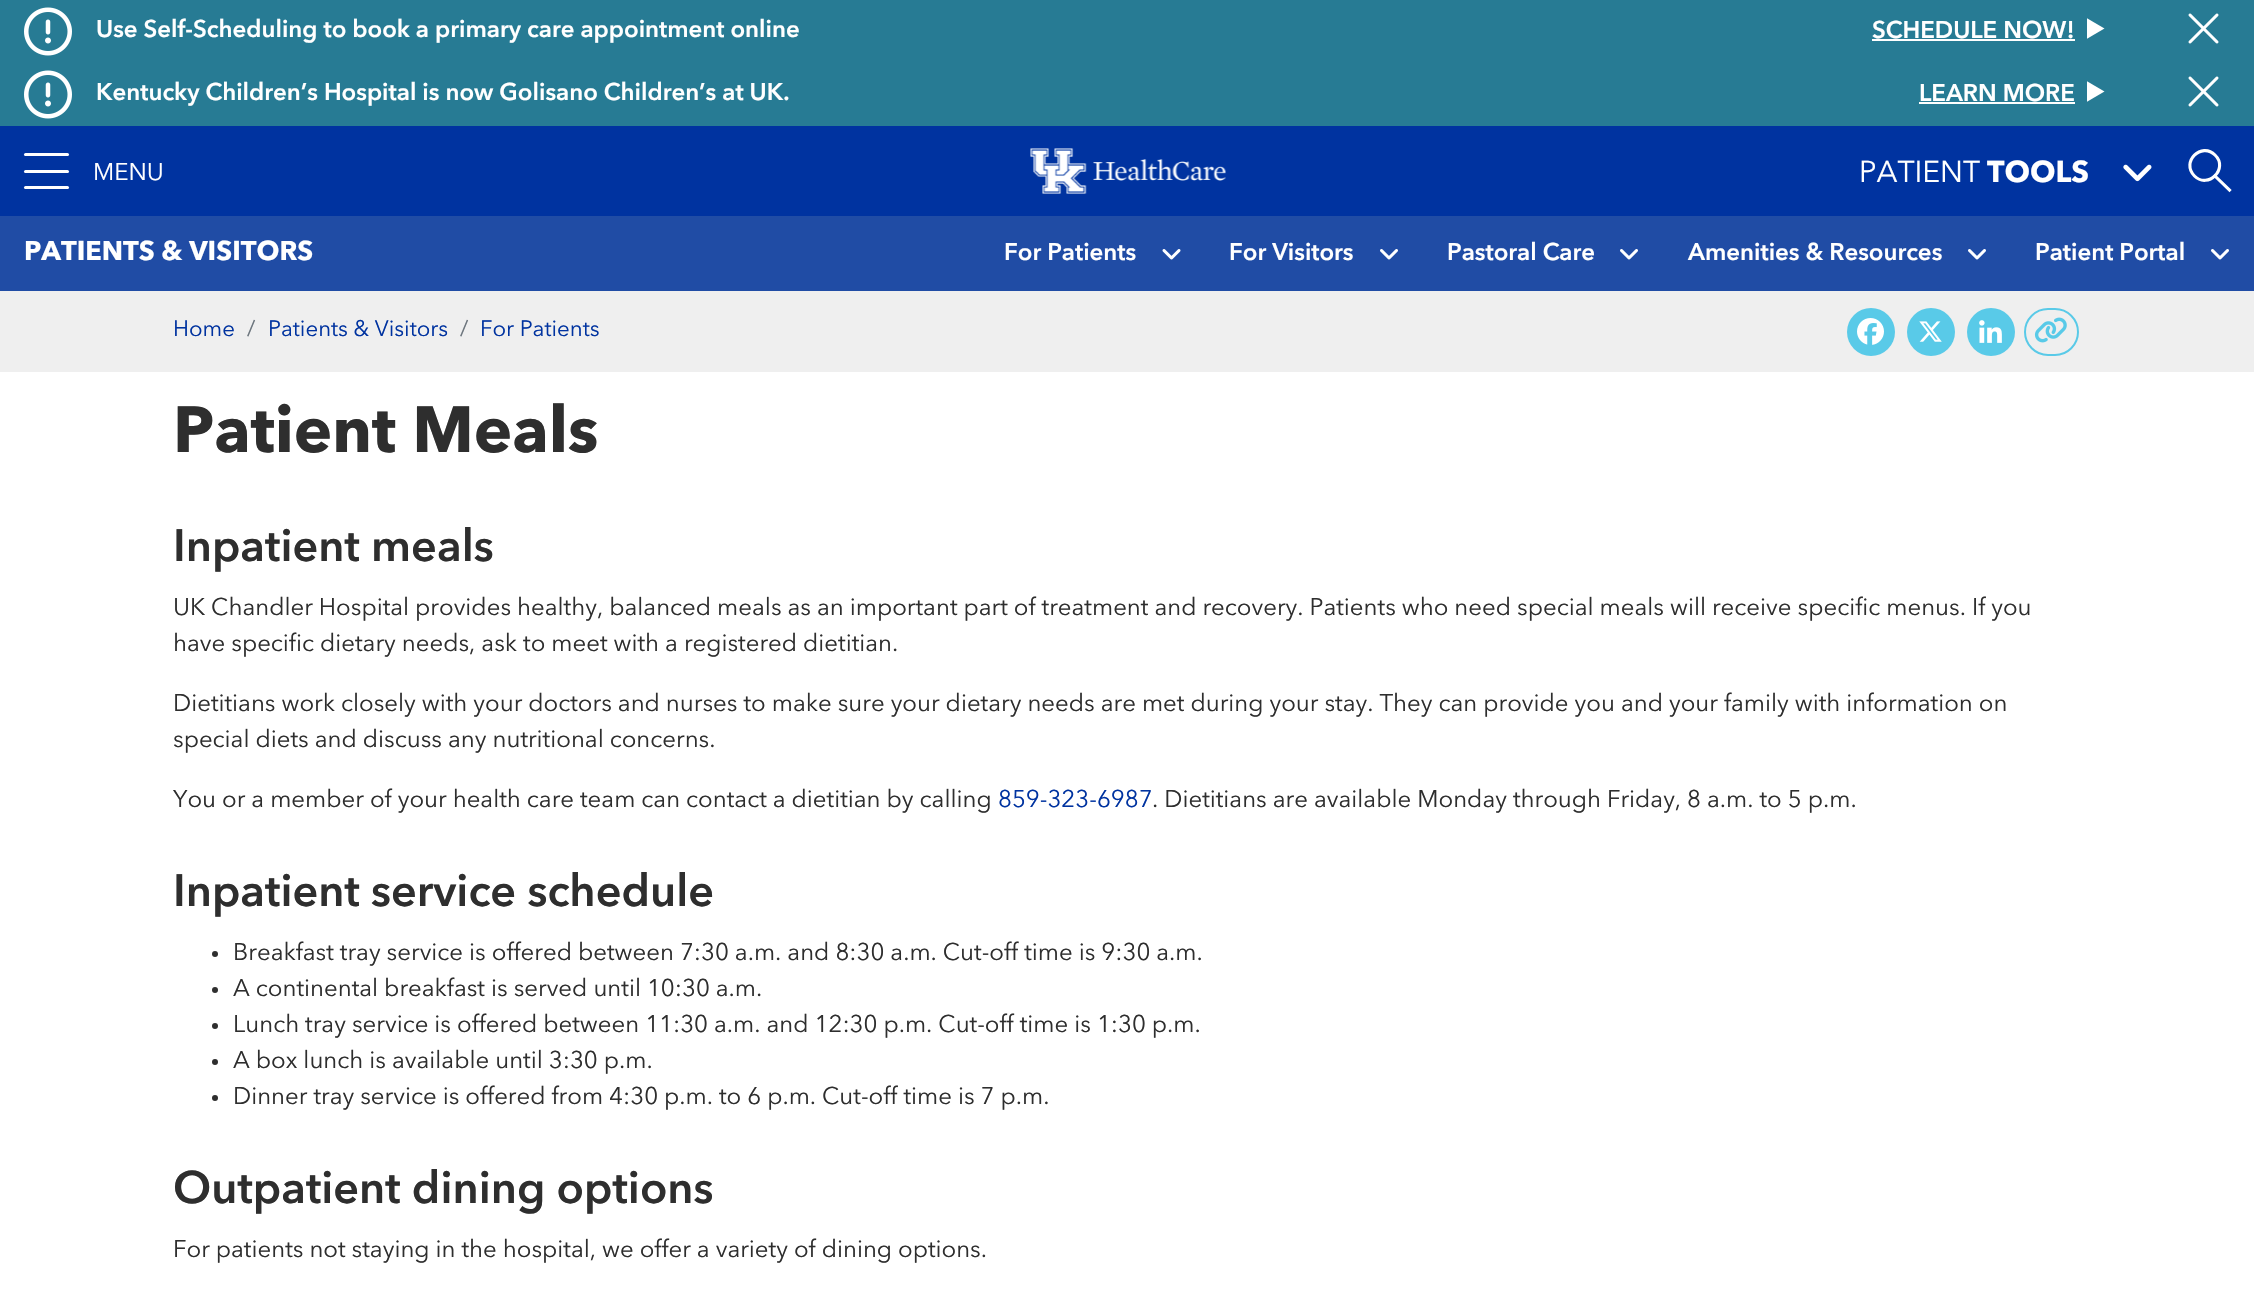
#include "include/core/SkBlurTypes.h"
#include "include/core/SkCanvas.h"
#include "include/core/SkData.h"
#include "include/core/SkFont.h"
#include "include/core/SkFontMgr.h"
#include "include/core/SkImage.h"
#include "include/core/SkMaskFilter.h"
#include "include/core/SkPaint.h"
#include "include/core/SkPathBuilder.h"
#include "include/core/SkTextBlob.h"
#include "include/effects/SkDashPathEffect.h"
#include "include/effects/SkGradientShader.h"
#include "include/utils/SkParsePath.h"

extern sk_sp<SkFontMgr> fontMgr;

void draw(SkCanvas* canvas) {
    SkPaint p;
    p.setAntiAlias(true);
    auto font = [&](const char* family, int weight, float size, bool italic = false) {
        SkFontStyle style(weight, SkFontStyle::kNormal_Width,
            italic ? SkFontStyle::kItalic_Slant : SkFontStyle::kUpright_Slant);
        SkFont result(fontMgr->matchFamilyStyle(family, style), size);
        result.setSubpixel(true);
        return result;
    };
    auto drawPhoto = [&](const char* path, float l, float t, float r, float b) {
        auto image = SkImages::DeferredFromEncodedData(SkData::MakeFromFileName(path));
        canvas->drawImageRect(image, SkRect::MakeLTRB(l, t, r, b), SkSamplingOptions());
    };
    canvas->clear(0xFFFFFFFF);
    p.setColor(0xFF277B94);
    canvas->drawRect(SkRect::MakeLTRB(0, 0, 2254, 126), p);
    drawPhoto("media/1.png", 24, 7, 72, 56);
    auto font1 = font("Avenir Next", 600, 24);
    p.setColor(0xFFFFFFFF);
    canvas->drawString("Use Self-Scheduling to book a primary care appointment online", 96, 37, font1, p);
    canvas->drawString("SCHEDULE NOW!", 1872, 38, font1, p);
    canvas->drawRect(SkRect::MakeLTRB(1872, 39, 2075, 41), p);
    canvas->save();
    canvas->clipRect(SkRect::MakeLTRB(2087, 18, 2105, 39));
    canvas->drawPath(SkPathBuilder().moveTo(2104.5f, 28.5f).lineTo(2086.5f, 39).lineTo(2086.5f, 18).close().detach(), p);
    canvas->restore();
    drawPhoto("media/2.png", 2188, 13, 2219, 44);
    drawPhoto("media/1.png", 24, 70, 72, 119);
    canvas->drawString("Kentucky Children’s Hospital is now Golisano Children’s at UK.", 96, 100, font1, p);
    canvas->drawString("LEARN MORE", 1919, 101, font1, p);
    canvas->drawRect(SkRect::MakeLTRB(1919, 102, 2075, 104), p);
    canvas->save();
    canvas->clipRect(SkRect::MakeLTRB(2087, 81, 2105, 102));
    canvas->drawPath(SkPathBuilder().moveTo(2104.5f, 91.5f).lineTo(2086.5f, 102).lineTo(2086.5f, 81).close().detach(), p);
    canvas->restore();
    drawPhoto("media/2.png", 2188, 76, 2219, 107);
    p.setColor(0xFF0033A0);
    canvas->drawRect(SkRect::MakeLTRB(0, 126, 2254, 216), p);
    p.setColor(0xFFFFFFFF);
    canvas->drawRoundRect(SkRect::MakeLTRB(24, 153, 69, 156), 1.5f, 1.5f, p);
    canvas->drawRoundRect(SkRect::MakeLTRB(24, 170, 69, 173), 1.5f, 1.5f, p);
    canvas->drawRoundRect(SkRect::MakeLTRB(24, 186, 69, 189), 1.5f, 1.5f, p);
    auto font2 = font("Avenir Next", 400, 24);
    canvas->drawString("MENU", 93, 180, font2, p);
    drawPhoto("media/3.png", 1030, 148, 1226, 194);
    auto font3 = font("Avenir Next", 400, 30);
    canvas->drawString("PATIENT", 1859, 182, font3, p);
    auto font4 = font("Avenir Next", 700, 30);
    canvas->drawString("TOOLS", 1987, 182, font4, p);
    drawPhoto("media/4.png", 2123, 164, 2152, 182);
    p.setStyle(SkPaint::kStroke_Style);
    p.setStrokeWidth(3.1f);
    canvas->drawPath(SkPathBuilder().moveTo(2215, 155).cubicTo(2229, 168.5f, 2208, 189.5f, 2194.5f, 176).cubicTo(2180.5f, 162, 2201.5f, 141.5f, 2215, 155).close().detach(), p);
    p.setStrokeCap(SkPaint::kSquare_Cap);
    canvas->drawPath(SkPathBuilder().moveTo(2215, 176).lineTo(2229.5f, 190).detach(), p);
    p.setStyle(SkPaint::kFill_Style);
    p.setColor(0xFF204CA5);
    canvas->drawRect(SkRect::MakeLTRB(0, 216, 2254, 291), p);
    auto font5 = font("Avenir Next", 700, 27);
    p.setColor(0xFFFFFFFF);
    canvas->drawString("PATIENTS & VISITORS", 24, 260, font5, p);
    canvas->drawString("For Patients", 1004, 260, font1, p);
    drawPhoto("media/5.png", 1162, 249, 1181, 260);
    canvas->drawString("For Visitors", 1229, 260, font1, p);
    drawPhoto("media/6.png", 1380, 249, 1398, 260);
    canvas->drawString("Pastoral Care", 1447, 260, font1, p);
    drawPhoto("media/6.png", 1620, 249, 1638, 260);
    canvas->drawString("Amenities & Resources", 1688, 260, font1, p);
    drawPhoto("media/6.png", 1968, 249, 1986, 260);
    canvas->drawString("Patient Portal", 2035, 260, font1, p);
    drawPhoto("media/6.png", 2211, 249, 2229, 260);
    p.setColor(0xFFEFEFEF);
    canvas->drawRect(SkRect::MakeLTRB(0, 291, 2254, 372), p);
    auto font6 = font("Avenir Next", 400, 22.25f);
    p.setColor(0xFF0033A0);
    canvas->drawString("Home", 173, 336, font6, p);
    p.setColor(0xFF6C757D);
    canvas->drawString("/", 247, 336, font6, p);
    p.setColor(0xFF0033A0);
    canvas->drawString("Patients & Visitors", 268, 336, font6, p);
    p.setColor(0xFF6C757D);
    canvas->drawString("/", 460, 336, font6, p);
    p.setColor(0xFF0033A0);
    canvas->drawString("For Patients", 480, 336, font6, p);
    p.setColor(0xFF59CAE8);
    canvas->drawCircle(1871, 332, 24, p);
    drawPhoto("media/7.png", 1857, 318, 1884, 345);
    canvas->drawCircle(1931, 332, 24, p);
    drawPhoto("media/8.png", 1919, 321, 1942, 342);
    canvas->drawCircle(1991, 332, 24, p);
    drawPhoto("media/9.png", 1979, 320, 2002, 343);
    p.setStyle(SkPaint::kStroke_Style);
    p.setStrokeWidth(2);
    p.setStrokeCap(SkPaint::kButt_Cap);
    canvas->drawRoundRect(SkRect::MakeLTRB(2025, 309, 2078, 355), 23, 23, p);
    drawPhoto("media/10.png", 2034, 317, 2067, 343);
    auto font7 = font("Avenir Next", 700, 64.5f);
    p.setStyle(SkPaint::kFill_Style);
    p.setColor(0xFF2E2E2E);
    canvas->drawString("Patient Meals", 173, 452, font7, p);
    auto font8 = font("Avenir Next", 600, 45);
    canvas->drawString("Inpatient meals", 173, 561, font8, p);
    {
        const struct { const char* s; float x, y; } items[] = {
            {"UK Chandler Hospital provides healthy, balanced meals as an important part of treatment and recovery. Patients who need special meals will receive specific menus. If you", 173, 615},
            {"have specific dietary needs, ask to meet with a registered dietitian.", 173, 651},
            {"Dietitians work closely with your doctors and nurses to make sure your dietary needs are met during your stay. They can provide you and your family with information on", 173, 711},
            {"special diets and discuss any nutritional concerns.", 173, 747},
            {"You or a member of your health care team can contact a dietitian by calling", 173, 807},
        };
        for (auto [s, x, y] : items) {
            canvas->drawString(s, x, y, font2, p);
        }
    }
    p.setColor(0xFF0033A0);
    canvas->drawString("859-323-6987", 998, 807, font2, p);
    p.setColor(0xFF2E2E2E);
    canvas->drawString(". Dietitians are available Monday through Friday, 8 a.m. to 5 p.m.", 1152, 807, font2, p);
    canvas->drawString("Inpatient service schedule", 173, 906, font8, p);
    canvas->drawCircle(215, 954, 3, p);
    canvas->drawString("Breakfast tray service is offered between 7:30 a.m. and 8:30 a.m. Cut-off time is 9:30 a.m.", 233, 960, font2, p);
    canvas->drawCircle(215, 990, 3, p);
    canvas->drawString("A continental breakfast is served until 10:30 a.m.", 233, 996, font2, p);
    canvas->drawCircle(215, 1026, 3, p);
    canvas->drawString("Lunch tray service is offered between 11:30 a.m. and 12:30 p.m. Cut-off time is 1:30 p.m.", 233, 1032, font2, p);
    canvas->drawCircle(215, 1062, 3, p);
    canvas->drawString("A box lunch is available until 3:30 p.m.", 233, 1068, font2, p);
    canvas->drawCircle(215, 1098, 3, p);
    canvas->drawString("Dinner tray service is offered from 4:30 p.m. to 6 p.m. Cut-off time is 7 p.m.", 233, 1104, font2, p);
    canvas->drawString("Outpatient dining options", 173, 1203, font8, p);
    canvas->drawString("For patients not staying in the hospital, we offer a variety of dining options.", 173, 1257, font2, p);
}
